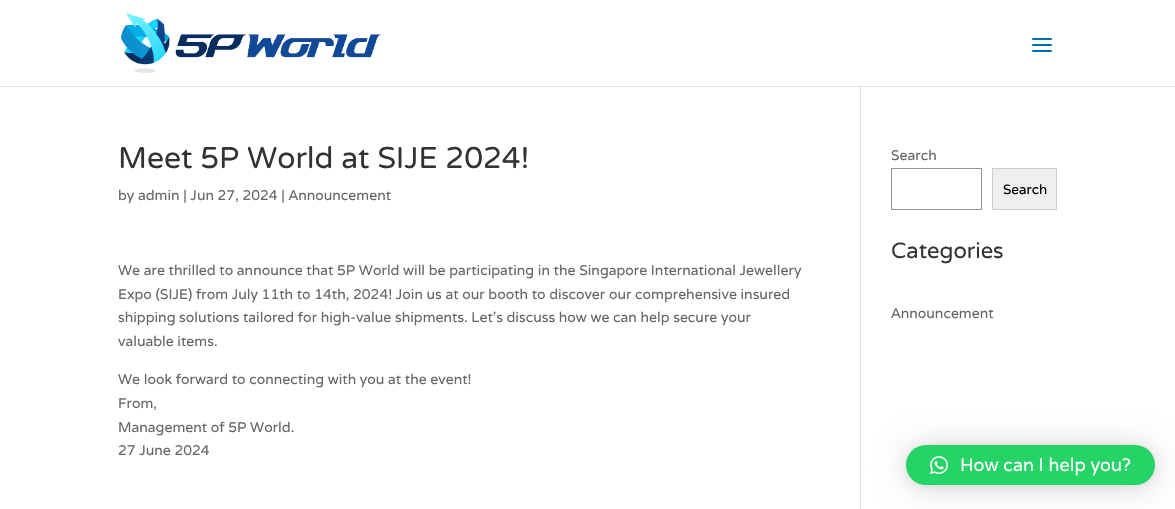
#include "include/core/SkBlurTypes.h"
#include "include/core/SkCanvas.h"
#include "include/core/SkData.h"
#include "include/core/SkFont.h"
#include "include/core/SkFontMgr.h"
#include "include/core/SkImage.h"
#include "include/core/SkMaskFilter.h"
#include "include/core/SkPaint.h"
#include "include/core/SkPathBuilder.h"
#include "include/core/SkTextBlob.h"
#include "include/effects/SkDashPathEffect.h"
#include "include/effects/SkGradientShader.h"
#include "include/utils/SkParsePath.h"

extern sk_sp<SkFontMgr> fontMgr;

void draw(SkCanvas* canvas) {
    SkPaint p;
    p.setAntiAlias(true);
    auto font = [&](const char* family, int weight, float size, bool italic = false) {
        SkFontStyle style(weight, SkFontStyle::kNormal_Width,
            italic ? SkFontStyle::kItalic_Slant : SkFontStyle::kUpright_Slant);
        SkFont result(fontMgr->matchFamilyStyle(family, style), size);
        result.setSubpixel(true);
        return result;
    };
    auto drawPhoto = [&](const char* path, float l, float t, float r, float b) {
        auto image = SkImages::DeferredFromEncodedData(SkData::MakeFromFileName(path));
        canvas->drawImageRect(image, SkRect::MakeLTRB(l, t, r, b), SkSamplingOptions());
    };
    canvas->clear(0xFFFFFFFF);
    p.setColor(0xFFE6E6E6);
    canvas->drawRect(SkRect::MakeLTRB(0, 86, 1175, 87), p);
    drawPhoto("media/1.png", 121, 13, 382, 73);
    drawPhoto("media/2.png", 1032, 38, 1052, 52);
    p.setColor(0xFFE2E2E2);
    canvas->drawRect(SkRect::MakeLTRB(860, 86, 861, 509), p);
    p.setColor(0xFFCBCBCB);
    canvas->drawRect(SkRect::MakeLTRB(860, 86, 861, 87), p);
    auto font1 = font("Varela Round", 400, 30);
    p.setColor(0xFF333333);
    canvas->drawString("Meet 5P World at SIJE 2024!", 118, 168, font1, p);
    auto font2 = font("Varela", 400, 14);
    p.setColor(0xFF666666);
    {
        const struct { const char* s; float x, y; } items[] = {
            {"by admin | Jun 27, 2024 | Announcement", 118, 200},
            {"We are thrilled to announce that 5P World will be participating in the Singapore International Jewellery", 118, 275},
            {"Expo (SIJE) from July 11th to 14th, 2024! Join us at our booth to discover our comprehensive insured", 118, 299},
            {"shipping solutions tailored for high-value shipments. Let’s discuss how we can help secure your", 118, 322},
            {"valuable items.", 118, 346},
            {"We look forward to connecting with you at the event!", 118, 384},
            {"From,", 118, 408},
            {"Management of 5P World.", 118, 432},
            {"27 June 2024", 118, 455},
            {"Search", 891, 160},
        };
        for (auto [s, x, y] : items) {
            canvas->drawString(s, x, y, font2, p);
        }
    }
    p.setStyle(SkPaint::kStroke_Style);
    p.setStrokeWidth(1);
    p.setColor(0xFF949494);
    canvas->drawRect(SkRect::MakeLTRB(891.5f, 168.5f, 981.5f, 209.5f), p);
    p.setStyle(SkPaint::kFill_Style);
    p.setColor(0xFFEFEFEF);
    canvas->drawRect(SkRect::MakeLTRB(992.5f, 168.5f, 1056.5f, 209.5f), p);
    p.setStyle(SkPaint::kStroke_Style);
    p.setColor(0xFFCCCCCC);
    canvas->drawRect(SkRect::MakeLTRB(992.5f, 168.5f, 1056.5f, 209.5f), p);
    auto font3 = font("Varela", 400, 13.5f);
    p.setStyle(SkPaint::kFill_Style);
    p.setColor(0xFF000000);
    canvas->drawString("Search", 1003, 194, font3, p);
    auto font4 = font("Varela Round", 400, 22);
    p.setColor(0xFF333333);
    canvas->drawString("Categories", 891, 258, font4, p);
    p.setColor(0xFF666666);
    canvas->drawString("Announcement", 891, 318, font2, p);
    p.setColor(0x29000000);
    p.setMaskFilter(SkMaskFilter::MakeBlur(kNormal_SkBlurStyle, 16));
    canvas->drawRoundRect(SkRect::MakeLTRB(906, 447, 1155, 487), 20, 20, p);
    p.setMaskFilter(nullptr);
    p.setColor(0x0F000000);
    p.setMaskFilter(SkMaskFilter::MakeBlur(kNormal_SkBlurStyle, 3));
    canvas->drawRoundRect(SkRect::MakeLTRB(906, 446, 1155, 486), 20, 20, p);
    p.setMaskFilter(nullptr);
    p.setColor(0xFF25D366);
    canvas->drawRoundRect(SkRect::MakeLTRB(906, 445, 1155, 485), 20, 20, p);
    drawPhoto("media/3.png", 930, 456, 948, 475);
    auto font5 = font("Varela", 400, 18);
    p.setColor(0xFFFFFFFF);
    canvas->drawString("How can I help you?", 960, 471, font5, p);
}
